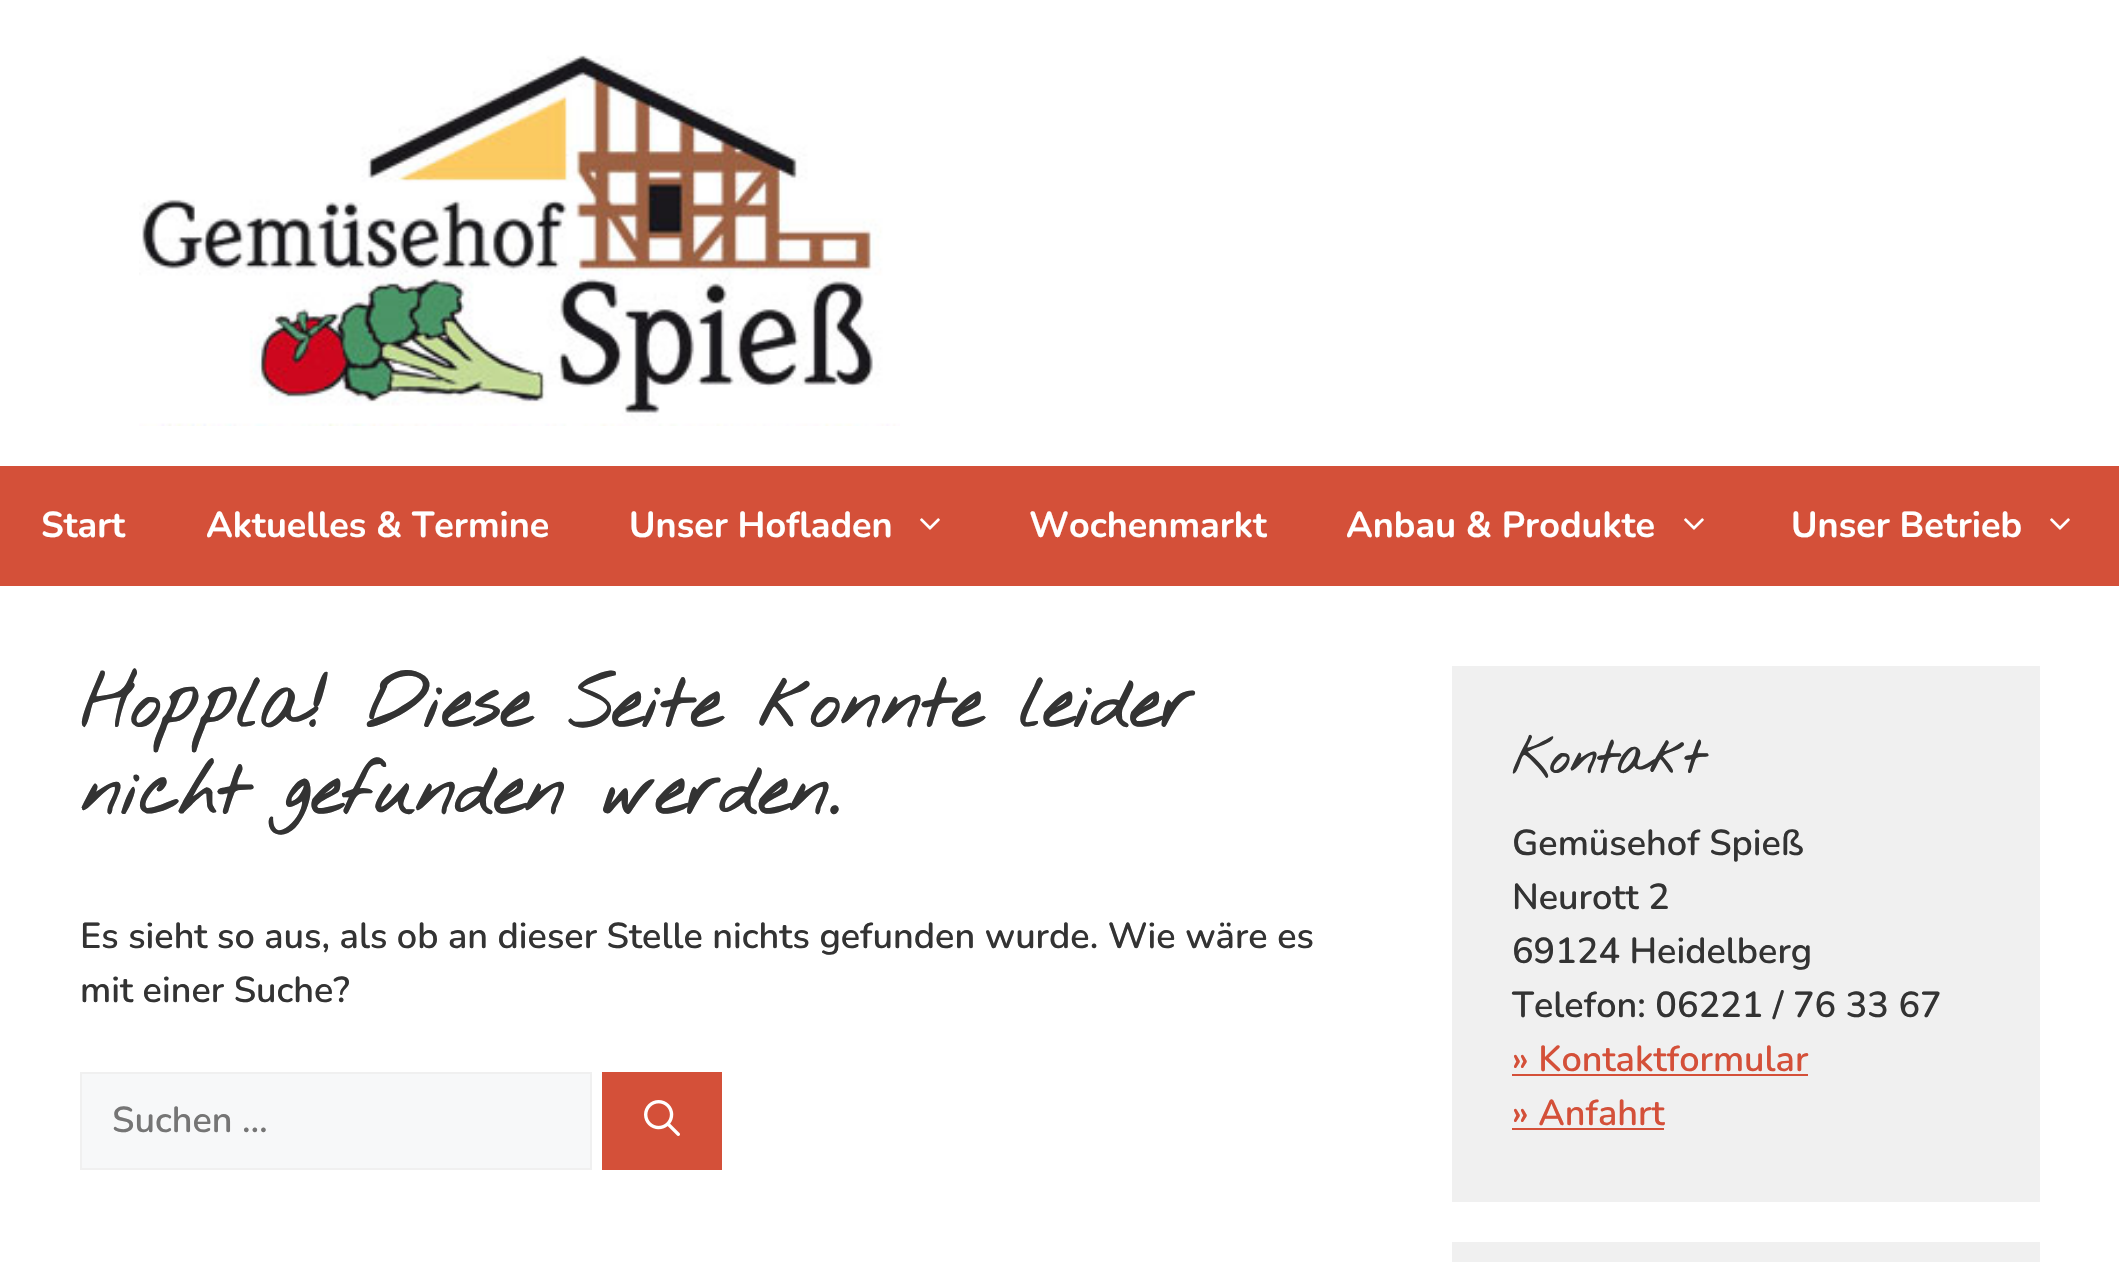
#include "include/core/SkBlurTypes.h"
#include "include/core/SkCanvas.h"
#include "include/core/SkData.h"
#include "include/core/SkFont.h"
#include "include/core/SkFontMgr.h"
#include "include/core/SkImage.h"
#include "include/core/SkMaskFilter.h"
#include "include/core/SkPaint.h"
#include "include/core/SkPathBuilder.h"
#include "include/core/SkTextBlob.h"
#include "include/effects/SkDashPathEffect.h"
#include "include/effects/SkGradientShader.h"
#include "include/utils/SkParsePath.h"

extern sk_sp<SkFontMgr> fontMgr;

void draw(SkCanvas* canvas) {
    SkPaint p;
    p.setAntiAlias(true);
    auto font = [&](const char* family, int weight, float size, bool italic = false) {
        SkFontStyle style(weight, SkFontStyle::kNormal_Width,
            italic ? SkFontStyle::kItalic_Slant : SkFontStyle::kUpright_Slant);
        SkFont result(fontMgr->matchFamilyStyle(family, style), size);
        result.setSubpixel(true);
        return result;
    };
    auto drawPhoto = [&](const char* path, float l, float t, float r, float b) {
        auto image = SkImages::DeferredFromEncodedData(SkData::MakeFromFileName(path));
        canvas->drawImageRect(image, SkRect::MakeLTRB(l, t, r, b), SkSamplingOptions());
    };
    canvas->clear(0xFFD45039);
    p.setColor(0xFFFFFFFF);
    canvas->drawRect(SkRect::MakeLTRB(0, 0, 2119, 466), p);
    drawPhoto("media/1.png", 139, 55, 900, 426);
    auto font1 = font("Nunito", 700, 36);
    {
        const struct { const char* s; float x, y; } items[] = {
            {"Start", 41, 537},
            {"Aktuelles & Termine", 206, 537},
            {"Unser Hofladen", 629, 537},
        };
        for (auto [s, x, y] : items) {
            canvas->drawString(s, x, y, font1, p);
        }
    }
    drawPhoto("media/2.png", 920, 518, 940, 530);
    canvas->drawString("Wochenmarkt", 1029, 537, font1, p);
    canvas->drawString("Anbau & Produkte", 1346, 537, font1, p);
    drawPhoto("media/2.png", 1684, 518, 1704, 530);
    canvas->drawString("Unser Betrieb", 1791, 537, font1, p);
    drawPhoto("media/2.png", 2050, 518, 2070, 530);
    canvas->drawRect(SkRect::MakeLTRB(0, 586, 2119, 1262), p);
    auto font2 = font("Nothing You Could Do", 700, 72);
    p.setColor(0xFF333333);
    canvas->drawString("Hoppla! Diese Seite konnte leider", 80, 727, font2, p);
    canvas->drawString("nicht gefunden werden.", 80, 814, font2, p);
    auto font3 = font("Nunito", 600, 36);
    canvas->drawString("Es sieht so aus, als ob an dieser Stelle nichts gefunden wurde. Wie wäre es", 80, 948, font3, p);
    canvas->drawString("mit einer Suche?", 80, 1002, font3, p);
    p.setColor(0xFFF7F8F9);
    canvas->drawRect(SkRect::MakeLTRB(81, 1073, 591, 1169), p);
    p.setStyle(SkPaint::kStroke_Style);
    p.setStrokeWidth(2);
    p.setColor(0xFFF0F0F0);
    canvas->drawRect(SkRect::MakeLTRB(81, 1073, 591, 1169), p);
    p.setStyle(SkPaint::kFill_Style);
    p.setColor(0xFF757575);
    canvas->drawString("Suchen …", 112, 1132, font3, p);
    p.setColor(0xFFD45039);
    canvas->drawRect(SkRect::MakeLTRB(602, 1072, 722, 1170), p);
    drawPhoto("media/3.png", 644, 1100, 680, 1136);
    p.setColor(0xFFF0F0F0);
    canvas->drawRect(SkRect::MakeLTRB(1452, 666, 2040, 1202), p);
    auto font4 = font("Nothing You Could Do", 700, 48);
    p.setColor(0xFF333333);
    canvas->drawString("Kontakt", 1512, 773, font4, p);
    {
        const struct { const char* s; float x, y; } items[] = {
            {"Gemüsehof Spieß", 1512, 855},
            {"Neurott 2", 1512, 909},
            {"69124 Heidelberg", 1512, 963},
            {"Telefon: 06221 / 76 33 67", 1512, 1017},
        };
        for (auto [s, x, y] : items) {
            canvas->drawString(s, x, y, font3, p);
        }
    }
    p.setColor(0xFFD45039);
    canvas->drawString("» Kontaktformular", 1512, 1071, font3, p);
    canvas->drawRect(SkRect::MakeLTRB(1512, 1074, 1808, 1076), p);
    canvas->drawString("» Anfahrt", 1512, 1125, font3, p);
    canvas->drawRect(SkRect::MakeLTRB(1512, 1128, 1664, 1130), p);
    p.setColor(0xFFF0F0F0);
    canvas->drawRect(SkRect::MakeLTRB(1452, 1242, 2040, 1262), p);
}
